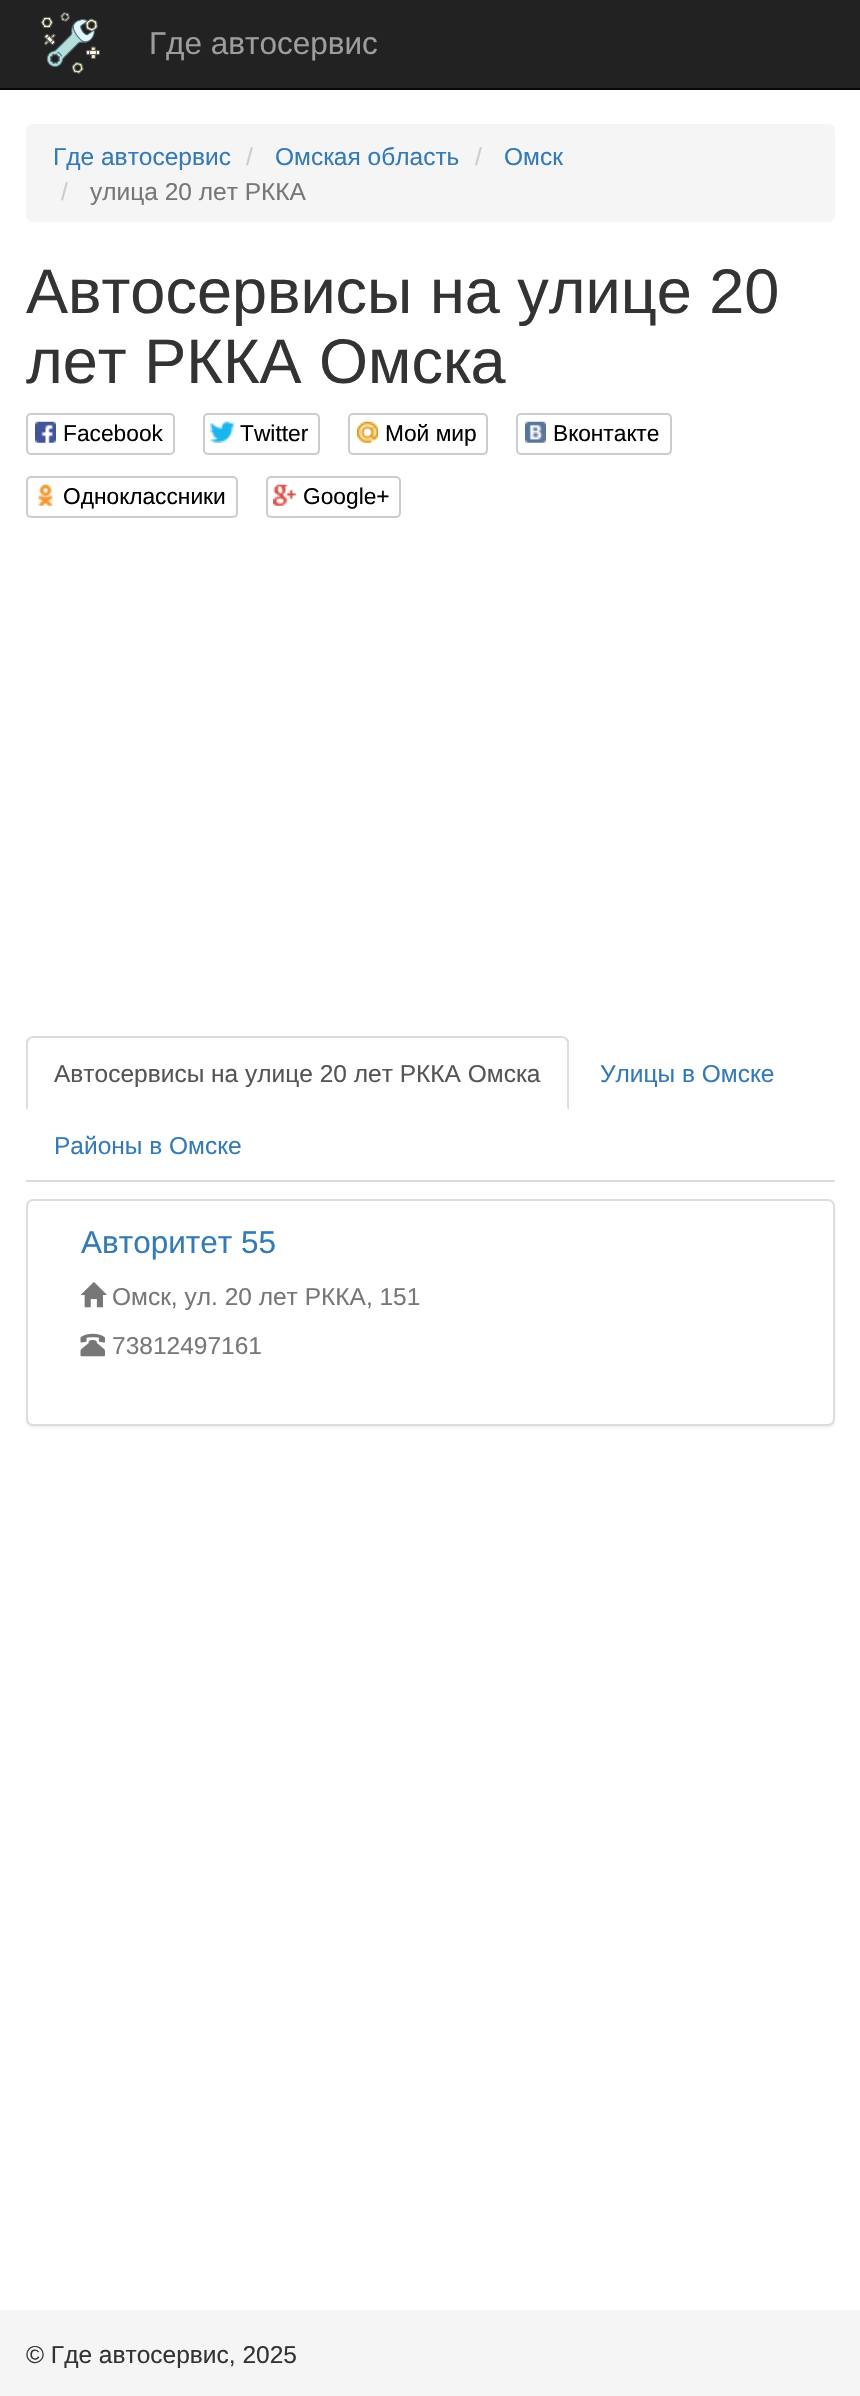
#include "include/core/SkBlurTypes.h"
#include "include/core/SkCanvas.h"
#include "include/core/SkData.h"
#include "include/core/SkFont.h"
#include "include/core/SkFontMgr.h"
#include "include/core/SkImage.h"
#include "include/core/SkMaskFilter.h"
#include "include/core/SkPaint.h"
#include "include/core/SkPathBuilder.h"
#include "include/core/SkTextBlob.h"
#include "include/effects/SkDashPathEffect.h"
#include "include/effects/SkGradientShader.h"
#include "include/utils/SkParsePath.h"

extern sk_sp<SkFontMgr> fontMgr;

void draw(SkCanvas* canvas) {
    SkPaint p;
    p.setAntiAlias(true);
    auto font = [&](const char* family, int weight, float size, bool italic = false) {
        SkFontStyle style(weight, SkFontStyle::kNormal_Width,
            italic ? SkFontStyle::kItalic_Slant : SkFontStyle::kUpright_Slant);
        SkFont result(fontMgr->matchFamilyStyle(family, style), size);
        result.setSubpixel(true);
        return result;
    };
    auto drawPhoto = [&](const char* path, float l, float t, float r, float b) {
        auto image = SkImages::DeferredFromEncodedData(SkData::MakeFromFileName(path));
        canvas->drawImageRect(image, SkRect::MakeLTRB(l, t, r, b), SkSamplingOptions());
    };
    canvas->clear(0xFFFFFFFF);
    p.setColor(0xFF222222);
    canvas->drawRect(SkRect::MakeLTRB(0, 0, 860, 88), p);
    p.setColor(0xFF080808);
    canvas->drawRect(SkRect::MakeLTRB(0, 88, 860, 90), p);
    drawPhoto("media/1.png", 40, 12, 100, 74);
    auto font1 = font("Liberation Sans", 400, 31.5f);
    p.setColor(0xFF9D9D9D);
    canvas->drawString("Где автосервис", 149, 54, font1, p);
    p.setColor(0xFFF5F5F5);
    canvas->drawRoundRect(SkRect::MakeLTRB(26, 124, 835, 222), 7, 7, p);
    auto font2 = font("Liberation Sans", 400, 24.5f);
    p.setColor(0xFF337AB7);
    canvas->drawString("Где автосервис", 53, 165, font2, p);
    p.setColor(0xFFCCCCCC);
    canvas->drawString("/", 246, 165, font2, p);
    p.setColor(0xFF337AB7);
    canvas->drawString("Омская область", 275, 165, font2, p);
    p.setColor(0xFFCCCCCC);
    canvas->drawString("/", 475, 165, font2, p);
    p.setColor(0xFF337AB7);
    canvas->drawString("Омск", 504, 165, font2, p);
    p.setColor(0xFFCCCCCC);
    canvas->drawString("/", 61, 200, font2, p);
    p.setColor(0xFF777777);
    canvas->drawString("улица 20 лет РККА", 90, 200, font2, p);
    auto font3 = font("Liberation Sans", 400, 63);
    p.setColor(0xFF333333);
    canvas->drawString("Автосервисы на улице 20", 26, 313, font3, p);
    canvas->drawString("лет РККА Омска", 26, 383, font3, p);
    p.setStyle(SkPaint::kStroke_Style);
    p.setStrokeWidth(2);
    p.setColor(0xFFCCCCCC);
    canvas->drawRoundRect(SkRect::MakeLTRB(27, 414, 174, 454), 4, 4, p);
    drawPhoto("media/2.png", 35, 421, 56, 443);
    auto font4 = font("Liberation Sans", 400, 22.75f);
    p.setStyle(SkPaint::kFill_Style);
    p.setColor(0xFF000000);
    canvas->drawString("Facebook", 63, 441, font4, p);
    p.setStyle(SkPaint::kStroke_Style);
    p.setColor(0xFFCCCCCC);
    canvas->drawRoundRect(SkRect::MakeLTRB(204, 414, 319, 454), 4, 4, p);
    drawPhoto("media/3.png", 210, 421, 235, 443);
    p.setStyle(SkPaint::kFill_Style);
    p.setColor(0xFF000000);
    canvas->drawString("Twitter", 240, 441, font4, p);
    p.setStyle(SkPaint::kStroke_Style);
    p.setColor(0xFFCCCCCC);
    canvas->drawRoundRect(SkRect::MakeLTRB(349, 414, 487, 454), 4, 4, p);
    drawPhoto("media/4.png", 357, 421, 378, 443);
    p.setStyle(SkPaint::kFill_Style);
    p.setColor(0xFF000000);
    canvas->drawString("Мой мир", 385, 441, font4, p);
    p.setStyle(SkPaint::kStroke_Style);
    p.setColor(0xFFCCCCCC);
    canvas->drawRoundRect(SkRect::MakeLTRB(517, 414, 671, 454), 4, 4, p);
    drawPhoto("media/5.png", 525, 421, 546, 443);
    p.setStyle(SkPaint::kFill_Style);
    p.setColor(0xFF000000);
    canvas->drawString("Вконтакте", 553, 441, font4, p);
    p.setStyle(SkPaint::kStroke_Style);
    p.setColor(0xFFCCCCCC);
    canvas->drawRoundRect(SkRect::MakeLTRB(27, 477, 237, 517), 4, 4, p);
    drawPhoto("media/6.png", 38, 484, 53, 506);
    p.setStyle(SkPaint::kFill_Style);
    p.setColor(0xFF000000);
    canvas->drawString("Одноклассники", 63, 504, font4, p);
    p.setStyle(SkPaint::kStroke_Style);
    p.setColor(0xFFCCCCCC);
    canvas->drawRoundRect(SkRect::MakeLTRB(267, 477, 400, 517), 4, 4, p);
    drawPhoto("media/7.png", 273, 484, 296, 506);
    p.setStyle(SkPaint::kFill_Style);
    p.setColor(0xFF000000);
    canvas->drawString("Google+", 303, 504, font4, p);
    p.setColor(0xFFDDDDDD);
    canvas->drawRect(SkRect::MakeLTRB(26, 1180, 835, 1182), p);
    canvas->drawPath(SkPathBuilder().moveTo(33, 1036).cubicTo(31, 1036, 29, 1037, 28, 1038).lineTo(30, 1039).cubicTo(30, 1038, 32, 1038, 33, 1038).lineTo(562, 1038).cubicTo(563, 1038, 565, 1038, 565, 1039).lineTo(567, 1038).cubicTo(566, 1037, 564, 1036, 562, 1036).close().detach(), p);
    canvas->drawPath(SkPathBuilder().moveTo(567, 1038).lineTo(569, 1041).lineTo(569, 1110).lineTo(567, 1108).lineTo(567, 1042).lineTo(565, 1039).close().detach(), p);
    canvas->drawPath(SkPathBuilder().moveTo(26, 1110).lineTo(26, 1041).lineTo(28, 1038).lineTo(30, 1039).lineTo(28, 1042).lineTo(28, 1108).close().detach(), p);
    p.setColor(0xFF555555);
    canvas->drawString("Автосервисы на улице 20 лет РККА Омска", 54, 1082, font2, p);
    p.setColor(0xFF337AB7);
    canvas->drawString("Улицы в Омске", 600, 1082, font2, p);
    canvas->drawString("Районы в Омске", 54, 1154, font2, p);
    p.setColor(0x0D000000);
    p.setMaskFilter(SkMaskFilter::MakeBlur(kNormal_SkBlurStyle, 1));
    canvas->drawRoundRect(SkRect::MakeLTRB(26, 1201, 835, 1428), 7, 7, p);
    p.setMaskFilter(nullptr);
    p.setColor(0xFFFFFFFF);
    canvas->drawRoundRect(SkRect::MakeLTRB(27, 1200, 834, 1425), 6, 6, p);
    p.setStyle(SkPaint::kStroke_Style);
    p.setColor(0xFFDDDDDD);
    canvas->drawRoundRect(SkRect::MakeLTRB(27, 1200, 834, 1425), 6, 6, p);
    p.setStyle(SkPaint::kFill_Style);
    p.setColor(0xFF337AB7);
    canvas->drawString("Авторитет 55", 81, 1253, font1, p);
    drawPhoto("media/8.png", 80, 1282, 107, 1308);
    p.setColor(0xFF777777);
    canvas->drawString("Омск, ул. 20 лет РККА, 151", 112, 1305, font2, p);
    drawPhoto("media/9.png", 80, 1333, 105, 1357);
    canvas->drawString("73812497161", 112, 1354, font2, p);
    p.setColor(0xFFF5F5F5);
    canvas->drawRect(SkRect::MakeLTRB(0, 2310, 860, 2396), p);
    p.setColor(0xFF333333);
    canvas->drawString("© Где автосервис, 2025", 26, 2363, font2, p);
}
